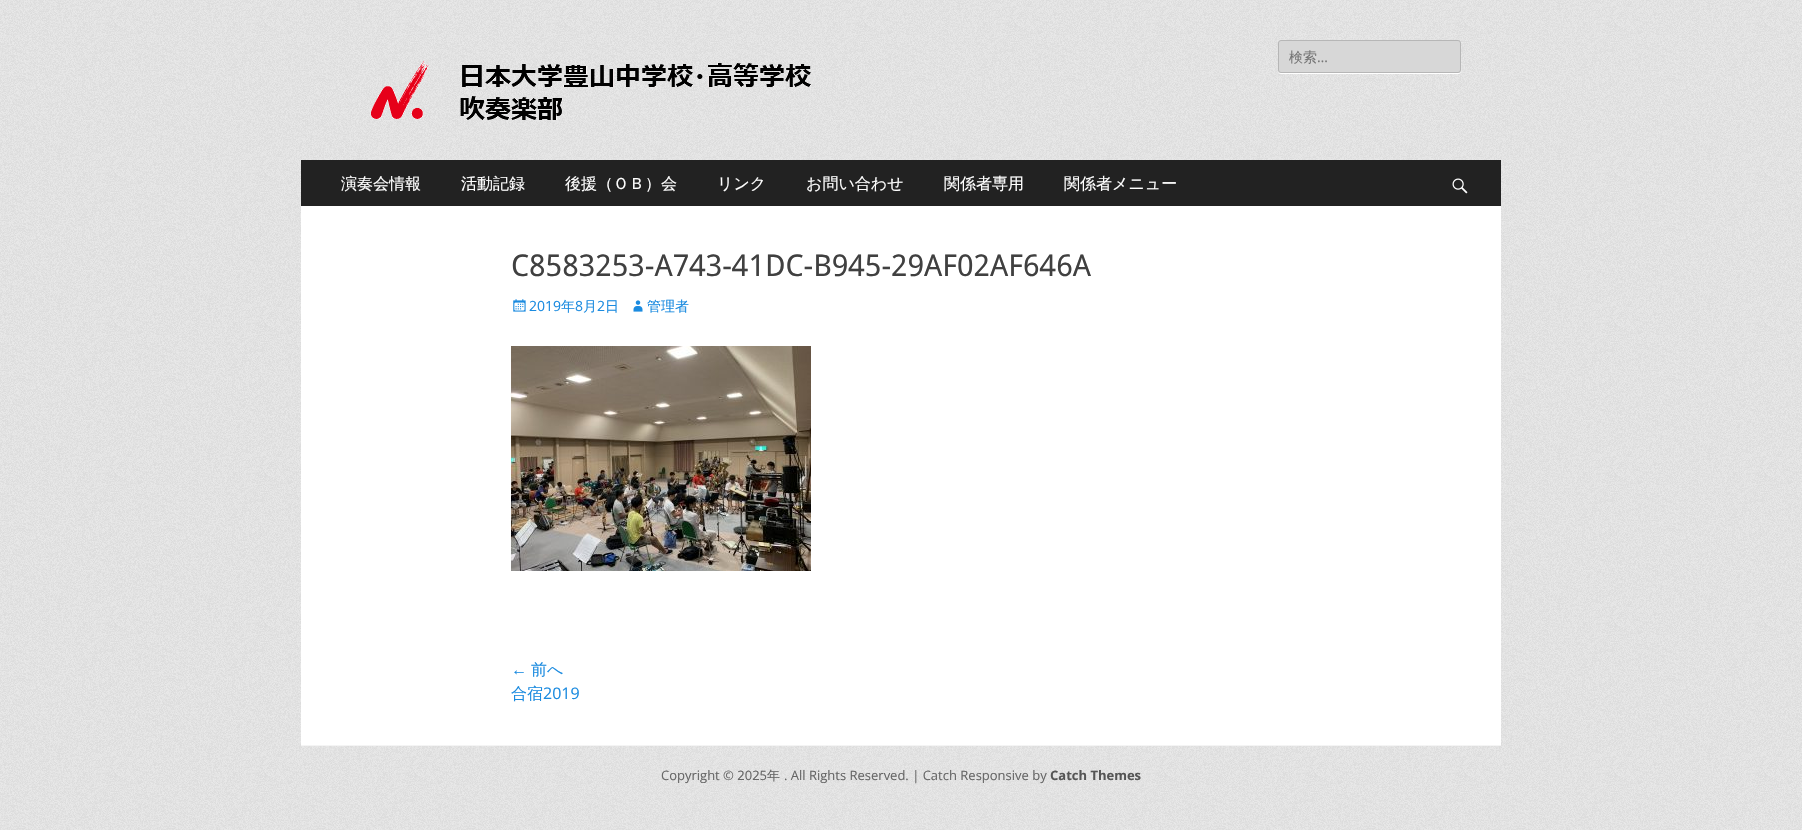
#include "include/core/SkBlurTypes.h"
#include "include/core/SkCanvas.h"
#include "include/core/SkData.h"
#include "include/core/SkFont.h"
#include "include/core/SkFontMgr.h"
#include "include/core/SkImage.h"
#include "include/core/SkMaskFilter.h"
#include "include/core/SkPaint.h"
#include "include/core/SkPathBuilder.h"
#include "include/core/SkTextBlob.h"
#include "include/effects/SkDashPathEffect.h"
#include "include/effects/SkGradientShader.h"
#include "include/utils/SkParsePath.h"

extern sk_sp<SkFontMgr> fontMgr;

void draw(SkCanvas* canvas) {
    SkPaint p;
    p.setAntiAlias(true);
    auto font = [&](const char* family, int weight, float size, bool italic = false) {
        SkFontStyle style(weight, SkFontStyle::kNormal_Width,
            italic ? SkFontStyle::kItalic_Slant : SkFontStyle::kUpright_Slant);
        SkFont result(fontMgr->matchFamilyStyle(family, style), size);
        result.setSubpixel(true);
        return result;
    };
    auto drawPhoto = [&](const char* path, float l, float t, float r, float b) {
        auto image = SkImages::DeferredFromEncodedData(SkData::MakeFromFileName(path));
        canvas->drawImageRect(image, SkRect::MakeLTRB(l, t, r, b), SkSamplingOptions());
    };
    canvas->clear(0xFFFFFFFF);
    drawPhoto("media/1.png", 0, 0, 1802, 830);
    p.setColor(0xFFFFFFFF);
    canvas->drawPath(SkPathBuilder().moveTo(1278, 70).cubicTo(1278, 72, 1279, 74, 1281, 74).lineTo(1459, 74).cubicTo(1461, 73, 1461, 72, 1461, 70).cubicTo(1461, 72, 1460, 73, 1458, 73).lineTo(1281, 73).cubicTo(1279, 73, 1278, 72, 1278, 70).close().detach(), p);
    p.setColor(0xFFD7D7D7);
    canvas->drawRoundRect(SkRect::MakeLTRB(1278.5f, 40.5f, 1460.5f, 72.5f), 2.5f, 2.5f, p);
    p.setStyle(SkPaint::kStroke_Style);
    p.setStrokeWidth(1);
    p.setColor(0xFFB6B6B6);
    canvas->drawRoundRect(SkRect::MakeLTRB(1278.5f, 40.5f, 1460.5f, 72.5f), 2.5f, 2.5f, p);
    auto font1 = font("WenQuanYi Zen Hei", 500, 14);
    p.setStyle(SkPaint::kFill_Style);
    p.setColor(0xFF757575);
    canvas->drawString("検索", 1289, 62, font1, p);
    auto font2 = font("Open Sans", 400, 14);
    canvas->drawString("…", 1317, 62, font2, p);
    drawPhoto("media/2.png", 371, 61, 811, 120);
    p.setColor(0xFF222222);
    canvas->drawRect(SkRect::MakeLTRB(301, 160, 1501, 206), p);
    auto font3 = font("WenQuanYi Zen Hei", 500, 16);
    p.setColor(0xFFFFFFFF);
    {
        const struct { const char* s; float x, y; } items[] = {
            {"演奏会情報", 341, 189},
            {"活動記録", 461, 189},
            {"後援（ＯＢ）会", 565, 189},
            {"リンク", 717, 189},
            {"お問い合わせ", 806, 189},
            {"関係者専用", 944, 189},
            {"関係者メニュー", 1064, 189},
        };
        for (auto [s, x, y] : items) {
            canvas->drawString(s, x, y, font3, p);
        }
    }
    drawPhoto("media/3.png", 1452, 178, 1468, 194);
    canvas->drawRect(SkRect::MakeLTRB(301, 206, 1501, 745), p);
    auto font4 = font("Droid Sans", 400, 30);
    p.setColor(0xFF404040);
    canvas->drawString("C8583253-A743-41DC-B945-29AF02AF646A", 511, 276, font4, p);
    drawPhoto("media/4.png", 513, 299, 526, 312);
    p.setColor(0xFF1B8BE0);
    canvas->drawString("2019", 529, 311, font2, p);
    canvas->drawString("年", 561, 311, font1, p);
    canvas->drawString("8", 575, 311, font2, p);
    canvas->drawString("月", 583, 311, font1, p);
    canvas->drawString("2", 597, 311, font2, p);
    canvas->drawString("日", 605, 311, font1, p);
    drawPhoto("media/5.png", 633, 300, 643, 312);
    canvas->drawString("管理者", 647, 311, font1, p);
    drawPhoto("media/6.png", 511, 346, 811, 571);
    auto font5 = font("Liberation Sans", 400, 16);
    canvas->drawString("←", 511, 675, font5, p);
    canvas->drawString("前へ", 531, 675, font3, p);
    canvas->drawString("合宿", 511, 699, font3, p);
    auto font6 = font("Open Sans", 400, 16);
    canvas->drawString("2019", 543, 699, font6, p);
    p.setColor(0xFFF4F4F4);
    canvas->drawRect(SkRect::MakeLTRB(301, 745, 1501, 746), p);
    auto font7 = font("Open Sans", 400, 13);
    p.setColor(0xFF666666);
    canvas->drawString("Copyright © 2025", 661, 780, font7, p);
    auto font8 = font("WenQuanYi Zen Hei", 500, 13);
    canvas->drawString("年", 767, 780, font8, p);
    canvas->drawString(". All Rights Reserved. | Catch Responsive by", 784, 780, font7, p);
    auto font9 = font("Open Sans", 700, 13);
    p.setColor(0xFF555555);
    canvas->drawString("Catch Themes", 1050, 780, font9, p);
}
